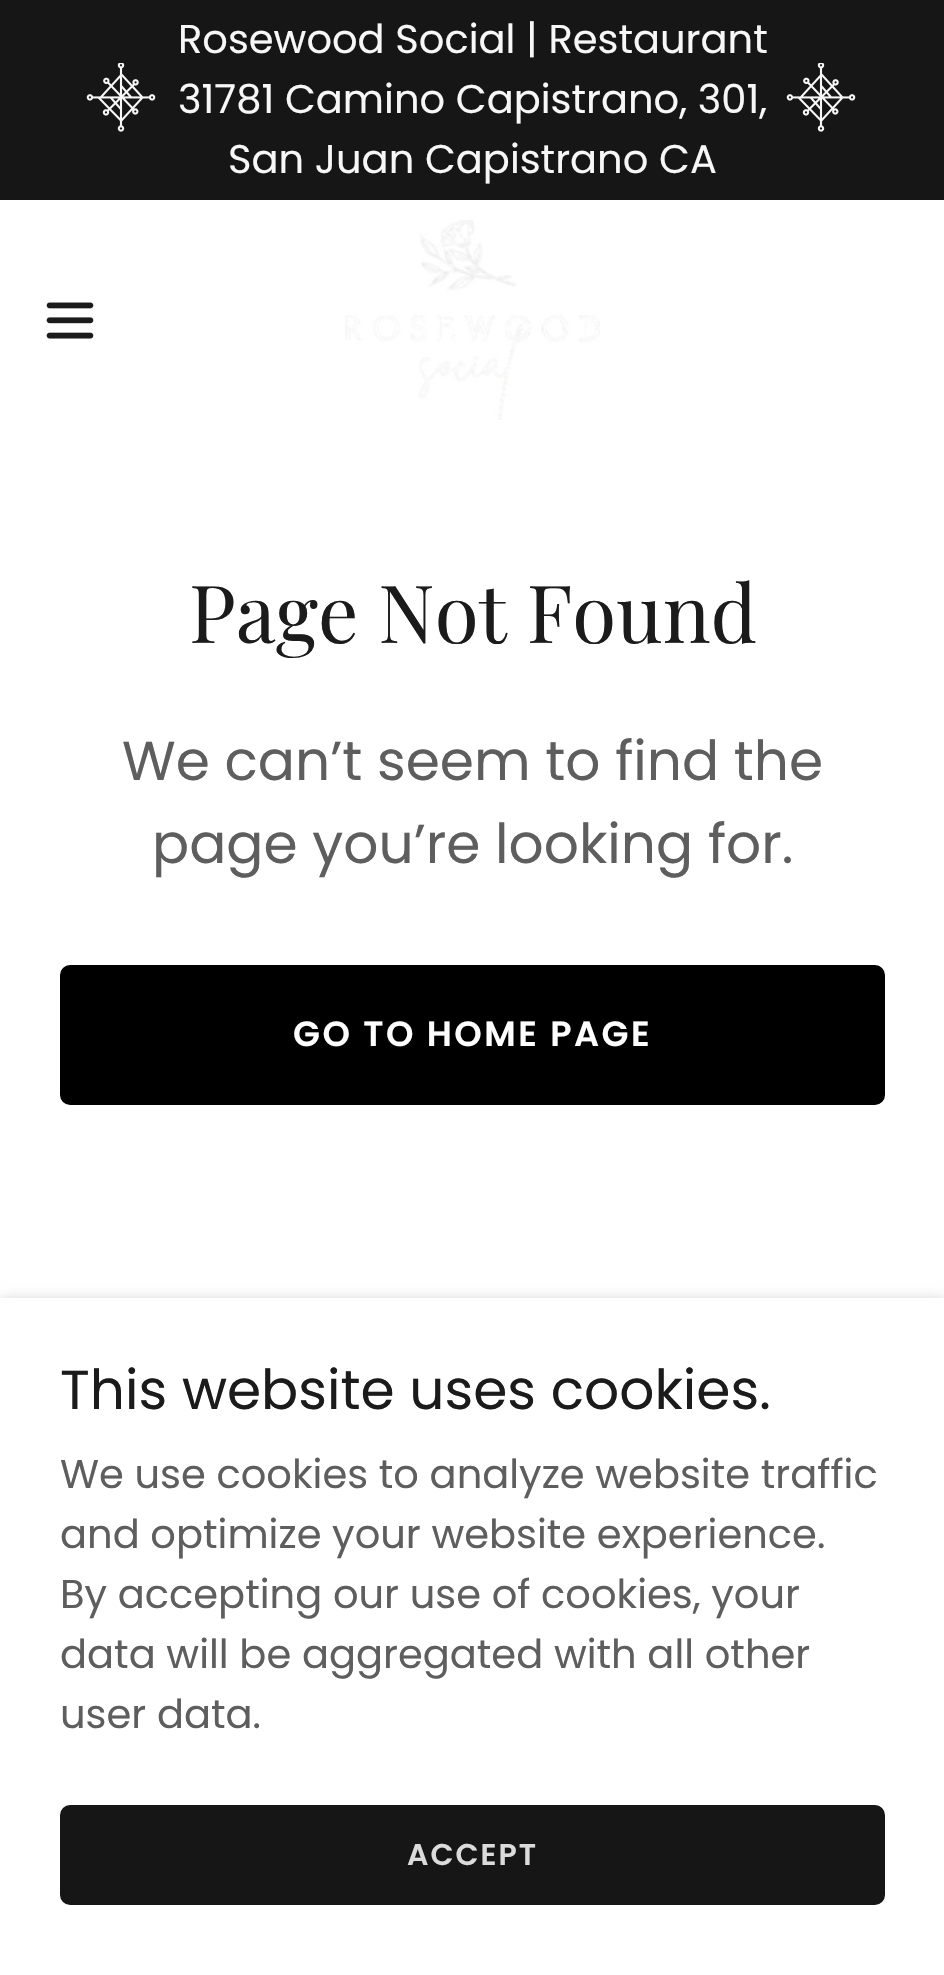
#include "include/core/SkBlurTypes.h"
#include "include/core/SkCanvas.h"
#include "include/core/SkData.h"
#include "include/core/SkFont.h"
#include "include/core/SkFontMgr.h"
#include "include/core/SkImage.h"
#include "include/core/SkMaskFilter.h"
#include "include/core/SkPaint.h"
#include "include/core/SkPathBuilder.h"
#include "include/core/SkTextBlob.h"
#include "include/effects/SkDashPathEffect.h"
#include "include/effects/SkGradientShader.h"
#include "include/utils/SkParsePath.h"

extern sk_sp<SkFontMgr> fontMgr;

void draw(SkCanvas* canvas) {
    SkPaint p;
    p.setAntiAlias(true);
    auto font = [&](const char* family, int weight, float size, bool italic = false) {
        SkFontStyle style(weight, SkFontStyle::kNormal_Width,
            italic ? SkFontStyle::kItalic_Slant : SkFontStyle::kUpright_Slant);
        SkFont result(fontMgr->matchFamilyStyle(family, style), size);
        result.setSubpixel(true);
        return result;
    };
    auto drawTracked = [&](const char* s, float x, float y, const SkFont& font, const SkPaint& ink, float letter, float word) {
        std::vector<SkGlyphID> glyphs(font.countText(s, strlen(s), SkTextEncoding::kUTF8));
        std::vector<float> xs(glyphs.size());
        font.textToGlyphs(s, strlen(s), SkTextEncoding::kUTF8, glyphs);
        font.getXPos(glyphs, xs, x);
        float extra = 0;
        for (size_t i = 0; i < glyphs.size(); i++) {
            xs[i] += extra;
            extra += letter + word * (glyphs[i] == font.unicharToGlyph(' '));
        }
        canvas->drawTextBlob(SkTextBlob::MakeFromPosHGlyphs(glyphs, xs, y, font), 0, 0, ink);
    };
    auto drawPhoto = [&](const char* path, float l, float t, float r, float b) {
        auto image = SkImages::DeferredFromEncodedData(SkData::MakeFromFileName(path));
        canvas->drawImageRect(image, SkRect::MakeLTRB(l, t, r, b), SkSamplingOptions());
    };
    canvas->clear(0xFFFFFFFF);
    p.setColor(0xFF161616);
    canvas->drawRect(SkRect::MakeLTRB(0, 0, 944, 200), p);
    drawPhoto("media/1.png", 86, 63, 156, 132);
    auto font1 = font("Poppins", 400, 40);
    p.setColor(0xFFF7F7F7);
    {
        const struct { const char* s; float x, y; } items[] = {
            {"Rosewood Social | Restaurant", 178, 53},
            {"31781 Camino Capistrano, 301,", 178, 113},
            {"San Juan Capistrano CA", 228, 173},
        };
        for (auto [s, x, y] : items) {
            canvas->drawString(s, x, y, font1, p);
        }
    }
    drawPhoto("media/1.png", 786, 63, 856, 132);
    drawPhoto("media/2.png", 46, 302, 94, 339);
    drawPhoto("media/3.png", 345, 220, 600, 420);
    auto font2 = font("Playfair Display", 400, 80);
    p.setColor(0xFF1B1B1B);
    canvas->drawString("Page Not Found", 189, 643, font2, p);
    auto font3 = font("Poppins", 400, 55);
    p.setColor(0xFF5E5E5E);
    canvas->drawString("We can’t seem to find the", 122, 780, font3, p);
    canvas->drawString("page you’re looking for.", 152, 863, font3, p);
    p.setColor(0xFF000000);
    canvas->drawRoundRect(SkRect::MakeLTRB(60, 965, 885, 1105), 10, 10, p);
    auto font4 = font("Poppins", 600, 35);
    p.setColor(0xFFFFFFFF);
    drawTracked("GO TO HOME PAGE", 293, 1046, font4, p, 2.5f, 0);
    p.setColor(0x4D000000);
    p.setMaskFilter(SkMaskFilter::MakeBlur(kNormal_SkBlurStyle, 7.5f));
    canvas->drawRect(SkRect::MakeLTRB(0, 1303, 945, 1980), p);
    p.setMaskFilter(nullptr);
    p.setColor(0xFFFFFFFF);
    canvas->drawRect(SkRect::MakeLTRB(0, 1298, 944, 1975), p);
    p.setColor(0xFF1B1B1B);
    canvas->drawString("This website uses cookies.", 60, 1409, font3, p);
    p.setColor(0xFF5E5E5E);
    {
        const struct { const char* s; float x, y; } items[] = {
            {"We use cookies to analyze website traffic", 60, 1488},
            {"and optimize your website experience.", 60, 1548},
            {"By accepting our use of cookies, your", 60, 1608},
            {"data will be aggregated with all other", 60, 1668},
            {"user data.", 60, 1728},
        };
        for (auto [s, x, y] : items) {
            canvas->drawString(s, x, y, font1, p);
        }
    }
    p.setColor(0xFF161616);
    canvas->drawRoundRect(SkRect::MakeLTRB(60, 1805, 885, 1905), 10, 10, p);
    auto font5 = font("Poppins", 600, 30);
    p.setColor(0xFFDBDBDB);
    drawTracked("ACCEPT", 407, 1865, font5, p, 2, 0);
}
